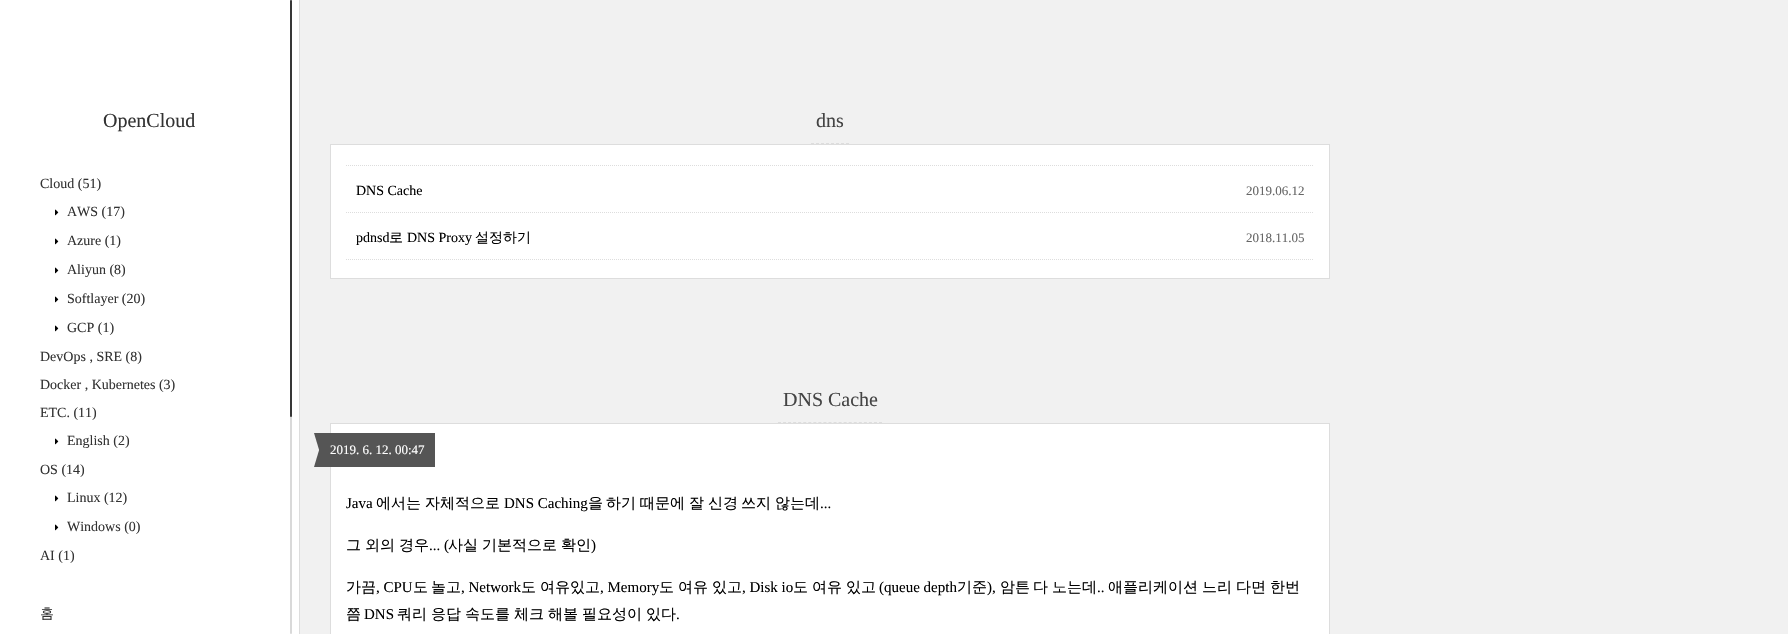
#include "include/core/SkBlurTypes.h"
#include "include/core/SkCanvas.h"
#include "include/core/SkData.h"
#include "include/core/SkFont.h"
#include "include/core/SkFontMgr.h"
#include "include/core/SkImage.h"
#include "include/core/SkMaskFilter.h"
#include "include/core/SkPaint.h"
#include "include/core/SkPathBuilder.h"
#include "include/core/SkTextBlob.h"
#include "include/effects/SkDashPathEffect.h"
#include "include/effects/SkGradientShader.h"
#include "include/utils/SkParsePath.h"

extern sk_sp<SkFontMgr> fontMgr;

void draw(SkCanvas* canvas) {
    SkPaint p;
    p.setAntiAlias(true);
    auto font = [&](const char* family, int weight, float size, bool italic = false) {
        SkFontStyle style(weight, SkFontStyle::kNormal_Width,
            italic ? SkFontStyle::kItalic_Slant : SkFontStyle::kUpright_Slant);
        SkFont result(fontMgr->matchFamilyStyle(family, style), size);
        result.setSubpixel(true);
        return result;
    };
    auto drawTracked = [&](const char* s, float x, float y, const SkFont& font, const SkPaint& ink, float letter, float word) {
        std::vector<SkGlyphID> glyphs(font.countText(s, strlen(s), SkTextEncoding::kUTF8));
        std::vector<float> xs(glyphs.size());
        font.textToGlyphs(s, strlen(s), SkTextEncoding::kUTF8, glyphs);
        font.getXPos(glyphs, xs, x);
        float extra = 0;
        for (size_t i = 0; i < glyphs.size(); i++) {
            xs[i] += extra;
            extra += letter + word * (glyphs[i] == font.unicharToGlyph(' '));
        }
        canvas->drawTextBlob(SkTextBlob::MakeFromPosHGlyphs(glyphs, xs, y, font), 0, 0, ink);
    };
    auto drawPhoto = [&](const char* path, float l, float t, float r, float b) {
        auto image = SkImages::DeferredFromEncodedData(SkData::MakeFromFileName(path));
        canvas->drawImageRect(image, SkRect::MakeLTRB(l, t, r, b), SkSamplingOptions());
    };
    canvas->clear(0xFFF1F1F1);
    p.setColor(0xFFFFFFFF);
    canvas->drawRect(SkRect::MakeLTRB(0, 0, 299, 634), p);
    p.setColor(0xFFDDDDDD);
    canvas->drawRect(SkRect::MakeLTRB(299, 0, 300, 634), p);
    auto font1 = font("Liberation Serif", 400, 20);
    p.setColor(0xFF333333);
    canvas->drawString("OpenCloud", 103, 127, font1, p);
    auto font2 = font("Liberation Serif", 400, 14);
    canvas->drawString("Cloud (51)", 40, 188, font2, p);
    drawPhoto("media/1.png", 55, 209, 59, 216);
    canvas->drawString("AWS (17)", 67, 216, font2, p);
    drawPhoto("media/1.png", 55, 238, 59, 245);
    canvas->drawString("Azure (1)", 67, 245, font2, p);
    drawPhoto("media/1.png", 55, 267, 59, 274);
    canvas->drawString("Aliyun (8)", 67, 274, font2, p);
    drawPhoto("media/1.png", 55, 296, 59, 303);
    canvas->drawString("Softlayer (20)", 67, 303, font2, p);
    drawPhoto("media/1.png", 55, 325, 59, 332);
    {
        const struct { const char* s; float x, y; } items[] = {
            {"GCP (1)", 67, 332},
            {"DevOps , SRE (8)", 40, 361},
            {"Docker , Kubernetes (3)", 40, 389},
            {"ETC. (11)", 40, 417},
        };
        for (auto [s, x, y] : items) {
            canvas->drawString(s, x, y, font2, p);
        }
    }
    drawPhoto("media/1.png", 55, 438, 59, 445);
    canvas->drawString("English (2)", 67, 445, font2, p);
    canvas->drawString("OS (14)", 40, 474, font2, p);
    drawPhoto("media/1.png", 55, 495, 59, 502);
    canvas->drawString("Linux (12)", 67, 502, font2, p);
    drawPhoto("media/1.png", 55, 524, 59, 531);
    canvas->drawString("Windows (0)", 67, 531, font2, p);
    canvas->drawString("AI (1)", 40, 560, font2, p);
    auto font3 = font("WenQuanYi Zen Hei", 500, 14);
    canvas->drawString("홈", 40, 618, font3, p);
    p.setColor(0xFFD9D9D9);
    canvas->drawRoundRect(SkRect::MakeLTRB(290, 0, 292, 634), 1, 1, p);
    p.setColor(0xBF000000);
    canvas->drawRoundRect(SkRect::MakeLTRB(290, 0, 292, 417), 1, 1, p);
    p.setStyle(SkPaint::kStroke_Style);
    p.setStrokeWidth(1);
    p.setColor(0xFFDDDDDD);
    p.setPathEffect(SkDashPathEffect::Make({{3, 2}}, 0));
    canvas->drawPath(SkPathBuilder().moveTo(811, 143.5f).lineTo(849, 143.5f).detach(), p);
    p.setPathEffect(nullptr);
    p.setStyle(SkPaint::kFill_Style);
    p.setColor(0xFF444444);
    canvas->drawString("dns", 816, 127, font1, p);
    p.setColor(0xFFFFFFFF);
    canvas->drawRect(SkRect::MakeLTRB(330.5f, 144.5f, 1329.5f, 278.5f), p);
    p.setStyle(SkPaint::kStroke_Style);
    p.setColor(0xFFDDDDDD);
    canvas->drawRect(SkRect::MakeLTRB(330.5f, 144.5f, 1329.5f, 278.5f), p);
    p.setPathEffect(SkDashPathEffect::Make({{1, 1}}, 0));
    canvas->drawPath(SkPathBuilder().moveTo(346, 165.5f).lineTo(1314, 165.5f).detach(), p);
    p.setPathEffect(nullptr);
    p.setPathEffect(SkDashPathEffect::Make({{1, 1}}, 0));
    canvas->drawPath(SkPathBuilder().moveTo(346, 212.5f).lineTo(1314, 212.5f).detach(), p);
    p.setPathEffect(nullptr);
    p.setStyle(SkPaint::kFill_Style);
    p.setColor(0xFF000000);
    canvas->drawString("DNS Cache", 356, 195, font2, p);
    auto font4 = font("Liberation Serif", 400, 13);
    p.setColor(0xFF666666);
    canvas->drawString("2019.06.12", 1246, 195, font4, p);
    p.setStyle(SkPaint::kStroke_Style);
    p.setColor(0xFFDDDDDD);
    p.setPathEffect(SkDashPathEffect::Make({{1, 1}}, 0));
    canvas->drawPath(SkPathBuilder().moveTo(346, 259.5f).lineTo(1314, 259.5f).detach(), p);
    p.setPathEffect(nullptr);
    p.setStyle(SkPaint::kFill_Style);
    p.setColor(0xFF000000);
    canvas->drawString("pdnsd", 356, 242, font2, p);
    canvas->drawString("로", 389, 242, font3, p);
    canvas->drawString("DNS Proxy", 407, 242, font2, p);
    canvas->drawString("설정하기", 475, 242, font3, p);
    p.setColor(0xFF666666);
    canvas->drawString("2018.11.05", 1246, 242, font4, p);
    p.setStyle(SkPaint::kStroke_Style);
    p.setColor(0xFFDDDDDD);
    p.setPathEffect(SkDashPathEffect::Make({{3, 2.05f}}, 0));
    canvas->drawPath(SkPathBuilder().moveTo(778, 422.5f).lineTo(882, 422.5f).detach(), p);
    p.setPathEffect(nullptr);
    p.setStyle(SkPaint::kFill_Style);
    p.setColor(0xFF444444);
    canvas->drawString("DNS Cache", 783, 406, font1, p);
    p.setColor(0xFFFFFFFF);
    canvas->drawRect(SkRect::MakeLTRB(330.5f, 423.5f, 1329.5f, 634.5f), p);
    p.setStyle(SkPaint::kStroke_Style);
    p.setColor(0xFFDDDDDD);
    canvas->drawRect(SkRect::MakeLTRB(330.5f, 423.5f, 1329.5f, 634.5f), p);
    p.setStyle(SkPaint::kFill_Style);
    p.setColor(0xFF555555);
    canvas->drawRect(SkRect::MakeLTRB(320, 433, 435, 467), p);
    canvas->drawPath(SkPathBuilder().moveTo(314, 433).lineTo(320, 433).lineTo(320, 453).close().detach(), p);
    p.setColor(0xFFFFFFFF);
    canvas->drawString("2019. 6. 12. 00:47", 330, 454, font4, p);
    p.setColor(0xFF555555);
    canvas->drawPath(SkPathBuilder().moveTo(320, 467).lineTo(314, 467).lineTo(320, 447).close().detach(), p);
    auto font5 = font("Liberation Serif", 400, 15);
    p.setColor(0xFF000000);
    canvas->drawString("Java", 346, 508, font5, p);
    auto font6 = font("WenQuanYi Zen Hei", 500, 15);
    canvas->drawString("에서는", 376, 508, font6, p);
    canvas->drawString("자체적으로", 425, 508, font6, p);
    canvas->drawString("DNS Caching", 504, 508, font5, p);
    {
        const struct { const char* s; float x, y; } items[] = {
            {"을", 588, 508},
            {"하기", 606, 508},
            {"때문에", 640, 508},
            {"잘", 689, 508},
            {"신경", 708, 508},
            {"쓰지", 741, 508},
            {"않는데", 775, 508},
        };
        for (auto [s, x, y] : items) {
            canvas->drawString(s, x, y, font6, p);
        }
    }
    canvas->drawString("...", 820, 508, font5, p);
    {
        const struct { const char* s; float x, y; } items[] = {
            {"그", 346, 550},
            {"외의", 365, 550},
            {"경우", 399, 550},
        };
        for (auto [s, x, y] : items) {
            canvas->drawString(s, x, y, font6, p);
        }
    }
    canvas->drawString("... (", 429, 550, font5, p);
    {
        const struct { const char* s; float x, y; } items[] = {
            {"사실", 448, 550},
            {"기본적으로", 482, 550},
            {"확인", 561, 550},
        };
        for (auto [s, x, y] : items) {
            canvas->drawString(s, x, y, font6, p);
        }
    }
    canvas->drawString(")", 591, 550, font5, p);
    canvas->drawString("가끔", 346, 592, font6, p);
    canvas->drawString(", CPU", 376, 592, font5, p);
    canvas->drawString("도", 413, 592, font6, p);
    canvas->drawString("놀고", 431, 592, font6, p);
    canvas->drawString(", Network", 461, 592, font5, p);
    canvas->drawString("도", 521, 592, font6, p);
    canvas->drawString("여유있고", 540, 592, font6, p);
    canvas->drawString(", Memory", 600, 592, font5, p);
    {
        const struct { const char* s; float x, y; } items[] = {
            {"도", 659, 592},
            {"여유", 678, 592},
            {"있고", 712, 592},
        };
        for (auto [s, x, y] : items) {
            canvas->drawString(s, x, y, font6, p);
        }
    }
    canvas->drawString(", Disk io", 742, 592, font5, p);
    {
        const struct { const char* s; float x, y; } items[] = {
            {"도", 793, 592},
            {"여유", 812, 592},
            {"있고", 846, 592},
        };
        for (auto [s, x, y] : items) {
            canvas->drawString(s, x, y, font6, p);
        }
    }
    canvas->drawString("(queue depth", 879, 592, font5, p);
    canvas->drawString("기준", 957, 592, font6, p);
    canvas->drawString("),", 987, 592, font5, p);
    {
        const struct { const char* s; float x, y; } items[] = {
            {"암튼", 1000, 592},
            {"다", 1033, 592},
            {"노는데", 1052, 592},
        };
        for (auto [s, x, y] : items) {
            canvas->drawString(s, x, y, font6, p);
        }
    }
    canvas->drawString("..", 1097, 592, font5, p);
    {
        const struct { const char* s; float x, y; } items[] = {
            {"애플리케이션", 1108, 592},
            {"느리", 1202, 592},
            {"다면", 1236, 592},
            {"한번", 1270, 592},
            {"쯤", 346, 619},
        };
        for (auto [s, x, y] : items) {
            canvas->drawString(s, x, y, font6, p);
        }
    }
    canvas->drawString("DNS", 364, 619, font5, p);
    drawTracked("쿼리 응답 속도를 체크 해볼 필요성이 있다", 397, 619, font6, p, 0, -0.5f);
    canvas->drawString(".", 676, 619, font5, p);
}
